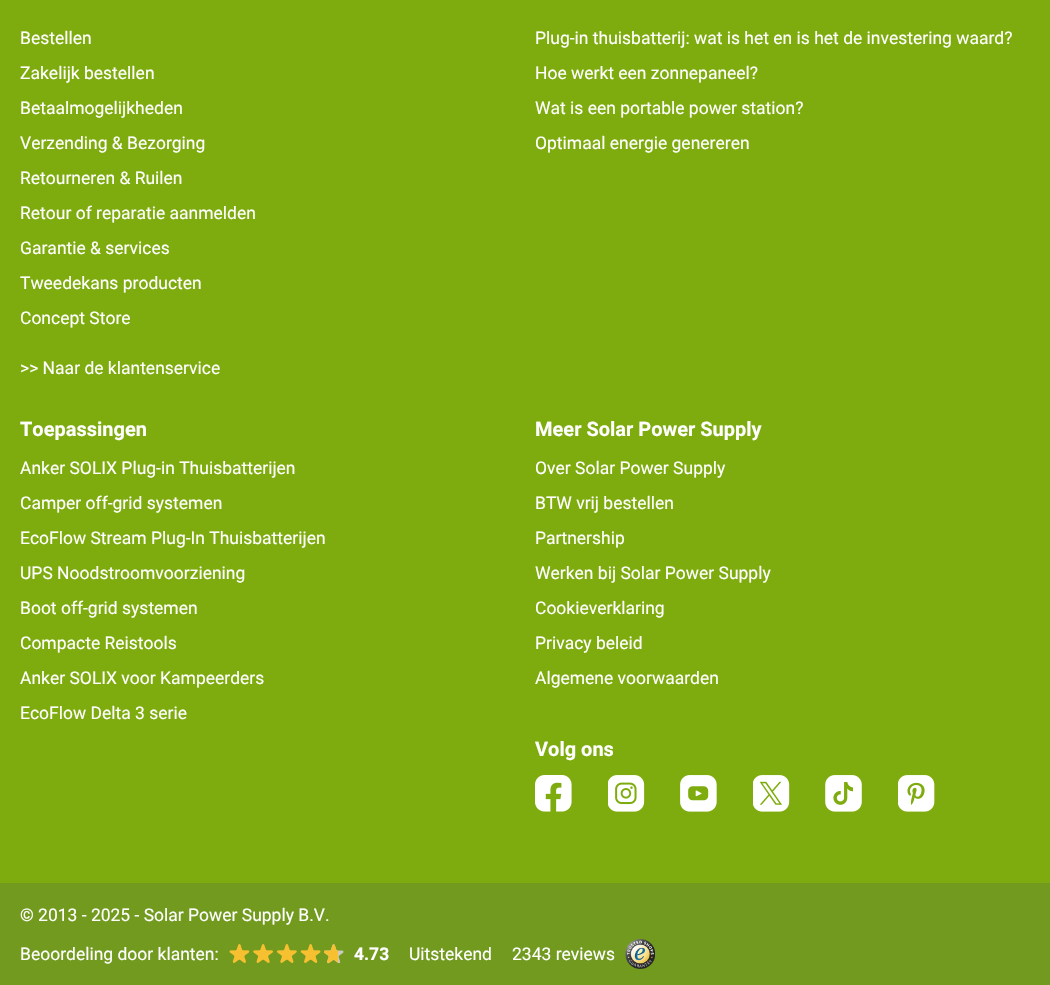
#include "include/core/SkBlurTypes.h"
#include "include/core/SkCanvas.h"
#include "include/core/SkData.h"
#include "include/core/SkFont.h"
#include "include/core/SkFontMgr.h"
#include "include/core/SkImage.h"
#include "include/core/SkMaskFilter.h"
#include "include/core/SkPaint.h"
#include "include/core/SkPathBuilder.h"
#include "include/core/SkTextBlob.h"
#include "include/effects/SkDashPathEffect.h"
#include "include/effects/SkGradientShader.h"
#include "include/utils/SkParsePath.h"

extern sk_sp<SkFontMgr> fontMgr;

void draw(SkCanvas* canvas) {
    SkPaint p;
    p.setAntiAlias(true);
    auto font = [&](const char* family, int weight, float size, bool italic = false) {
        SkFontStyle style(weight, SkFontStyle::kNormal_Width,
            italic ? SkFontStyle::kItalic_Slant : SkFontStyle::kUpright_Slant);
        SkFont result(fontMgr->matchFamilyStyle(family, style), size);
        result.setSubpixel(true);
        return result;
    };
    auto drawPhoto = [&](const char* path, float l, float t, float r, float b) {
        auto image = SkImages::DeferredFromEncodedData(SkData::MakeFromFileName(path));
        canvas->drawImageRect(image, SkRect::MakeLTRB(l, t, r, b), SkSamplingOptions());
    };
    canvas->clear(0xFF7EAB0E);
    auto font1 = font("Roboto", 400, 17.5f);
    p.setColor(0xFFFFFFFF);
    {
        const struct { const char* s; float x, y; } items[] = {
            {"Bestellen", 20, 44},
            {"Zakelijk bestellen", 20, 79},
            {"Betaalmogelijkheden", 20, 114},
            {"Verzending & Bezorging", 20, 149},
            {"Retourneren & Ruilen", 20, 184},
            {"Retour of reparatie aanmelden", 20, 219},
            {"Garantie & services", 20, 254},
            {"Tweedekans producten", 20, 289},
            {"Concept Store", 20, 324},
            {">> Naar de klantenservice", 20, 374},
            {"Plug-in thuisbatterij: wat is het en is het de investering waard?", 535, 44},
            {"Hoe werkt een zonnepaneel?", 535, 79},
            {"Wat is een portable power station?", 535, 114},
            {"Optimaal energie genereren", 535, 149},
        };
        for (auto [s, x, y] : items) {
            canvas->drawString(s, x, y, font1, p);
        }
    }
    auto font2 = font("Roboto", 700, 20);
    canvas->drawString("Toepassingen", 20, 436, font2, p);
    {
        const struct { const char* s; float x, y; } items[] = {
            {"Anker SOLIX Plug-in Thuisbatterijen", 20, 474},
            {"Camper off-grid systemen", 20, 509},
            {"EcoFlow Stream Plug-In Thuisbatterijen", 20, 544},
            {"UPS Noodstroomvoorziening", 20, 579},
            {"Boot off-grid systemen", 20, 614},
            {"Compacte Reistools", 20, 649},
            {"Anker SOLIX voor Kampeerders", 20, 684},
            {"EcoFlow Delta 3 serie", 20, 719},
        };
        for (auto [s, x, y] : items) {
            canvas->drawString(s, x, y, font1, p);
        }
    }
    canvas->drawString("Meer Solar Power Supply", 535, 436, font2, p);
    {
        const struct { const char* s; float x, y; } items[] = {
            {"Over Solar Power Supply", 535, 474},
            {"BTW vrij bestellen", 535, 509},
            {"Partnership", 535, 544},
            {"Werken bij Solar Power Supply", 535, 579},
            {"Cookieverklaring", 535, 614},
            {"Privacy beleid", 535, 649},
            {"Algemene voorwaarden", 535, 684},
        };
        for (auto [s, x, y] : items) {
            canvas->drawString(s, x, y, font1, p);
        }
    }
    canvas->drawString("Volg ons", 535, 756, font2, p);
    drawPhoto("media/1.png", 535, 775, 572, 812);
    drawPhoto("media/2.png", 608, 775, 645, 812);
    drawPhoto("media/3.png", 680, 775, 717, 812);
    drawPhoto("media/4.png", 753, 775, 790, 812);
    drawPhoto("media/5.png", 825, 775, 862, 812);
    drawPhoto("media/6.png", 898, 775, 935, 812);
    p.setColor(0xFF719A1E);
    canvas->drawRect(SkRect::MakeLTRB(0, 883, 1050, 985), p);
    p.setColor(0xFFFFFFFF);
    canvas->drawString("© 2013 - 2025 - Solar Power Supply B.V.", 20, 921, font1, p);
    canvas->drawString("Beoordeling door klanten:", 20, 960, font1, p);
    drawPhoto("media/7.png", 229, 944, 250, 963);
    drawPhoto("media/8.png", 253, 944, 273, 963);
    drawPhoto("media/9.png", 277, 944, 297, 963);
    drawPhoto("media/10.png", 300, 944, 321, 963);
    drawPhoto("media/11.png", 324, 944, 344, 964);
    auto font3 = font("Roboto", 700, 17.5f);
    canvas->drawString("4.73", 354, 960, font3, p);
    canvas->drawString("Uitstekend", 409, 960, font1, p);
    canvas->drawString("2343 reviews", 512, 960, font1, p);
    drawPhoto("media/12.png", 625, 939, 655, 969);
}
